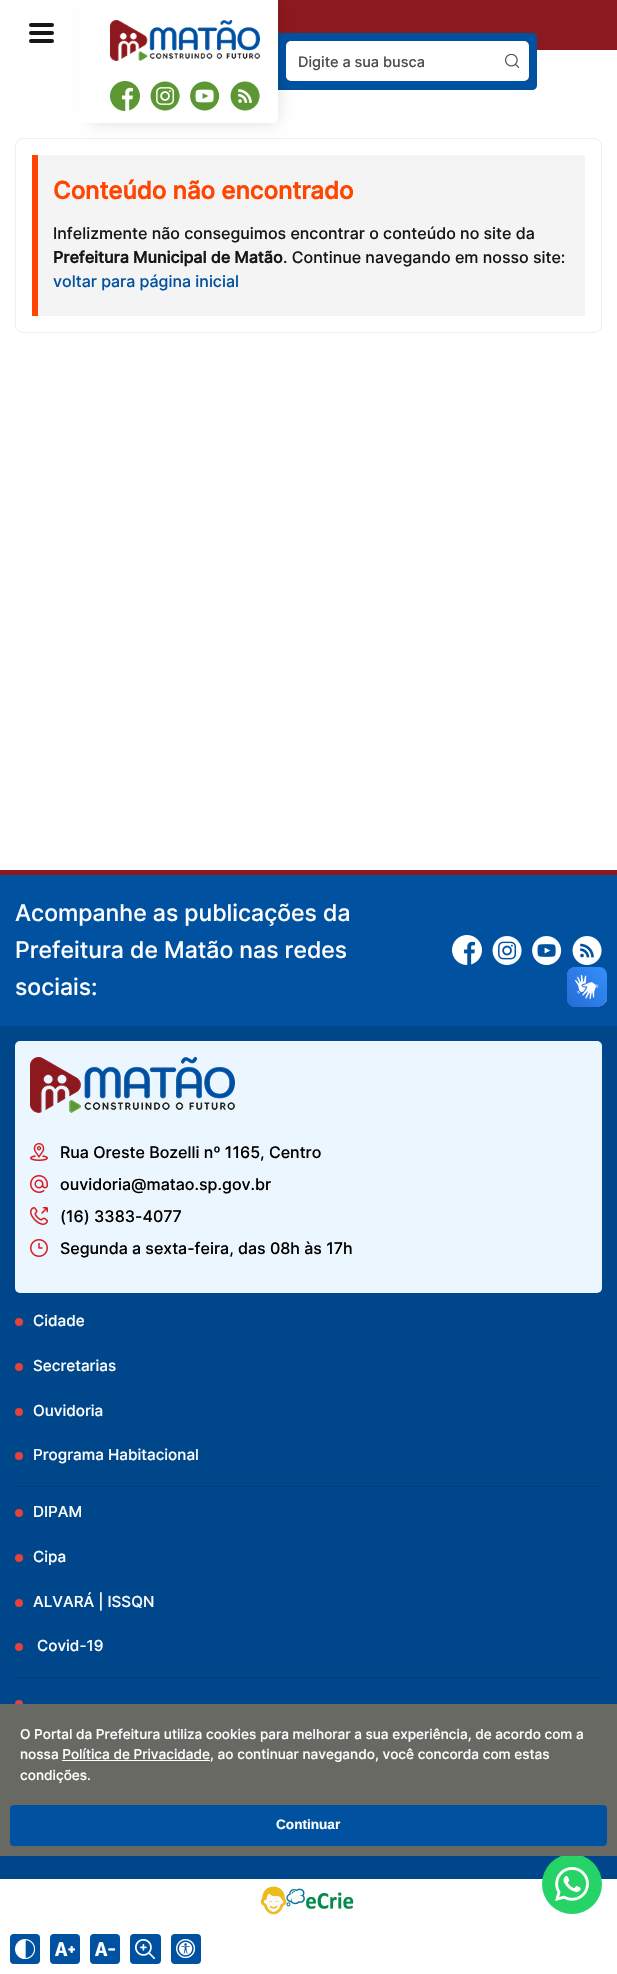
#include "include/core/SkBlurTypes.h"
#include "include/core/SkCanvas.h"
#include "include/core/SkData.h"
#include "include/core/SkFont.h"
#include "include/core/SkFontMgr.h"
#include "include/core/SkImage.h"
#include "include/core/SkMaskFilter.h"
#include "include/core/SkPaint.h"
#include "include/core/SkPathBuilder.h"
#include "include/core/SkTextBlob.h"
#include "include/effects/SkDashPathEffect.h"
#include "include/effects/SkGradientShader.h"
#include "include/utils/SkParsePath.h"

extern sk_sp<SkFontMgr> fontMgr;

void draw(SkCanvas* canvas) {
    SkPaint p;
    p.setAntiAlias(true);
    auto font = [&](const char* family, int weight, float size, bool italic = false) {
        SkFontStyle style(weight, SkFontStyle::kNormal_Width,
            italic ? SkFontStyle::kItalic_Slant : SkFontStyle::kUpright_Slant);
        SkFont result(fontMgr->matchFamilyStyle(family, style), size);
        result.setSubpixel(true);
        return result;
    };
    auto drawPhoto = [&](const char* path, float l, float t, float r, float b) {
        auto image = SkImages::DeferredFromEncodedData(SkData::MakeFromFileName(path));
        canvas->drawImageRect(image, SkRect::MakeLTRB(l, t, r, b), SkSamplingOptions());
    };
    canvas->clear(0xFFFFFFFF);
    p.setColor(0xFF8C191D);
    canvas->drawRect(SkRect::MakeLTRB(278, 0, 617, 50), p);
    p.setColor(0xFF0051A0);
    canvas->drawPath(SkPathBuilder().moveTo(278, 33).lineTo(532, 33).cubicTo(535, 33, 537, 35, 537, 38).lineTo(537, 85).cubicTo(537, 88, 535, 90, 532, 90).lineTo(278, 90).close().detach(), p);
    p.setStyle(SkPaint::kStroke_Style);
    p.setStrokeWidth(1);
    p.setColor(0xFFEEEEEE);
    canvas->drawRoundRect(SkRect::MakeLTRB(15.5f, 138.5f, 601.5f, 332.5f), 7.5f, 7.5f, p);
    p.setStyle(SkPaint::kFill_Style);
    p.setColor(0x21000000);
    p.setMaskFilter(SkMaskFilter::MakeBlur(kNormal_SkBlurStyle, 7.5f));
    canvas->drawRoundRect(SkRect::MakeLTRB(90, 0, 278, 123), 5, 5, p);
    p.setMaskFilter(nullptr);
    p.setColor(0xFFFFFFFF);
    canvas->drawPath(SkPathBuilder().moveTo(90, 0).lineTo(278, 0).lineTo(278, 118).cubicTo(278, 121, 276, 123, 273, 123).lineTo(95, 123).cubicTo(92, 123, 90, 121, 90, 118).close().detach(), p);
    canvas->drawRect(SkRect::MakeLTRB(79, 0, 94, 123), p);
    drawPhoto("media/1.png", 110, 20, 260, 61);
    drawPhoto("media/2.png", 110, 81, 140, 111);
    drawPhoto("media/3.png", 150, 81, 180, 111);
    drawPhoto("media/4.png", 190, 81, 220, 111);
    drawPhoto("media/5.png", 230, 81, 260, 111);
    p.setColor(0xFF171717);
    canvas->drawRoundRect(SkRect::MakeLTRB(29, 23, 54, 27), 2, 2, p);
    canvas->drawRoundRect(SkRect::MakeLTRB(29, 31, 54, 35), 2, 2, p);
    canvas->drawRoundRect(SkRect::MakeLTRB(29, 39, 54, 43), 2, 2, p);
    p.setColor(0xFFFFFFFF);
    canvas->drawRoundRect(SkRect::MakeLTRB(286, 41, 529, 81), 5, 5, p);
    auto font1 = font("Inter", 500, 14.5f);
    p.setColor(0xFF4E4C4C);
    canvas->drawString("Digite a sua busca", 298, 67, font1, p);
    drawPhoto("media/6.png", 505, 54, 519, 69);
    p.setColor(0xFFF4F4F4);
    canvas->drawRect(SkRect::MakeLTRB(38, 155, 585, 316), p);
    p.setColor(0xFFFF4500);
    canvas->drawRect(SkRect::MakeLTRB(32, 155, 38, 316), p);
    auto font2 = font("Inter", 700, 24);
    canvas->drawString("Conteúdo não encontrado", 53, 199, font2, p);
    auto font3 = font("Inter", 500, 16);
    p.setColor(0xFF171717);
    canvas->drawString("Infelizmente não conseguimos encontrar o conteúdo no site da", 53, 239, font3, p);
    auto font4 = font("Inter", 700, 16);
    canvas->drawString("Prefeitura Municipal de Matão", 53, 263, font4, p);
    canvas->drawString(". Continue navegando em nosso site:", 283, 263, font3, p);
    p.setColor(0xFF0051A0);
    canvas->drawString("voltar para página inicial", 53, 287, font3, p);
    {
        const struct { float l, t, r, b; SkColor color; } items[] = {
            {0, 1026, 617, 1879, 0xFF00468A},
            {0, 875, 617, 1026, 0xFF0051A0},
            {0, 870, 617, 875, 0xFF8C191D},
        };
        for (auto [l, t, r, b, color] : items) {
            p.setColor(color);
            canvas->drawRect(SkRect::MakeLTRB(l, t, r, b), p);
        }
    }
    auto font5 = font("Inter", 500, 23);
    p.setColor(0xFFFFFFFF);
    {
        const struct { const char* s; float x, y; } items[] = {
            {"Acompanhe as publicações da", 15, 921},
            {"Prefeitura de Matão nas redes", 15, 958},
            {"sociais:", 15, 995},
        };
        for (auto [s, x, y] : items) {
            canvas->drawString(s, x, y, font5, p);
        }
    }
    drawPhoto("media/7.png", 452, 935, 482, 965);
    drawPhoto("media/8.png", 492, 936, 522, 965);
    drawPhoto("media/9.png", 532, 936, 562, 965);
    drawPhoto("media/10.png", 572, 936, 602, 965);
    p.setColor(0xFFECF6FF);
    canvas->drawRoundRect(SkRect::MakeLTRB(15, 1041, 602, 1293), 5, 5, p);
    drawPhoto("media/11.png", 30, 1057, 235, 1113);
    drawPhoto("media/12.png", 30, 1143, 48, 1161);
    p.setColor(0xFF000000);
    canvas->drawString("Rua Oreste Bozelli nº 1165, Centro", 60, 1158, font3, p);
    drawPhoto("media/13.png", 30, 1175, 48, 1193);
    canvas->drawString("ouvidoria@matao.sp.gov.br", 60, 1190, font3, p);
    drawPhoto("media/14.png", 30, 1207, 48, 1225);
    canvas->drawString("(16) 3383-4077", 60, 1222, font3, p);
    drawPhoto("media/15.png", 30, 1239, 48, 1257);
    canvas->drawString("Segunda a sexta-feira, das 08h às 17h", 60, 1254, font3, p);
    p.setColor(0xFFE3423D);
    canvas->drawCircle(19, 1322, 4, p);
    auto font6 = font("Inter", 500, 15.25f);
    p.setColor(0xFFFFFFFF);
    canvas->drawString("Cidade", 33, 1326, font6, p);
    p.setColor(0xFFE3423D);
    canvas->drawCircle(19, 1367, 4, p);
    p.setColor(0xFFFFFFFF);
    canvas->drawString("Secretarias", 33, 1371, font6, p);
    p.setColor(0xFFE3423D);
    canvas->drawCircle(19, 1412, 4, p);
    p.setColor(0xFFFFFFFF);
    canvas->drawString("Ouvidoria", 33, 1416, font6, p);
    p.setColor(0xFFE3423D);
    canvas->drawCircle(19, 1456, 4, p);
    p.setColor(0xFFFFFFFF);
    canvas->drawString("Programa Habitacional", 33, 1460, font6, p);
    p.setColor(0xFF003E7A);
    canvas->drawRect(SkRect::MakeLTRB(15, 1486, 602, 1487), p);
    p.setColor(0xFFE3423D);
    canvas->drawCircle(19, 1513, 4, p);
    p.setColor(0xFFFFFFFF);
    canvas->drawString("DIPAM", 33, 1517, font6, p);
    p.setColor(0xFFE3423D);
    canvas->drawCircle(19, 1558, 4, p);
    p.setColor(0xFFFFFFFF);
    canvas->drawString("Cipa", 33, 1562, font6, p);
    p.setColor(0xFFE3423D);
    canvas->drawCircle(19, 1603, 4, p);
    p.setColor(0xFFFFFFFF);
    canvas->drawString("ALVARÁ | ISSQN", 33, 1607, font6, p);
    p.setColor(0xFFE3423D);
    canvas->drawCircle(19, 1647, 4, p);
    p.setColor(0xFFFFFFFF);
    canvas->drawString("Covid-19", 37, 1651, font6, p);
    p.setColor(0xFF003E7A);
    canvas->drawRect(SkRect::MakeLTRB(15, 1677, 602, 1678), p);
    p.setColor(0xFFE3423D);
    canvas->drawCircle(19, 1704, 4, p);
    drawPhoto("media/16.png", 567, 967, 607, 1007);
    drawPhoto("media/17.png", 567, 967, 607, 1007);
    p.setColor(0xFF25D366);
    canvas->drawCircle(572, 1884, 30, p);
    p.setColor(0xFF686963);
    canvas->drawRect(SkRect::MakeLTRB(0, 1704, 617, 1856), p);
    auto font7 = font("Inter", 500, 13.6f);
    p.setColor(0xFFFFFFFF);
    canvas->drawString("O Portal da Prefeitura utiliza cookies para melhorar a sua experiência, de acordo com a", 20, 1739, font7, p);
    canvas->drawString("nossa Política de Privacidade, ao continuar navegando, você concorda com estas", 20, 1759, font7, p);
    canvas->drawRect(SkRect::MakeLTRB(62, 1760, 210, 1761), p);
    canvas->drawString("condições.", 20, 1780, font7, p);
    p.setColor(0xFF0051A0);
    canvas->drawRoundRect(SkRect::MakeLTRB(10, 1805, 607, 1846), 4, 4, p);
    auto font8 = font("Liberation Sans", 700, 13.6f);
    p.setColor(0xFFFFFFFF);
    canvas->drawString("Continuar", 276, 1829, font8, p);
    drawPhoto("media/18.png", 260, 1886, 354, 1915);
    drawPhoto("media/19.png", 555, 1867, 589, 1901);
    p.setColor(0xFF0051A0);
    canvas->drawRoundRect(SkRect::MakeLTRB(10, 1934, 40, 1964), 4, 4, p);
    drawPhoto("media/20.png", 15, 1939, 35, 1959);
    canvas->drawRoundRect(SkRect::MakeLTRB(50, 1934, 80, 1964), 4, 4, p);
    drawPhoto("media/21.png", 55, 1942, 75, 1957);
    canvas->drawRoundRect(SkRect::MakeLTRB(90, 1934, 120, 1964), 4, 4, p);
    drawPhoto("media/22.png", 95, 1942, 115, 1957);
    canvas->drawRoundRect(SkRect::MakeLTRB(130, 1934, 161, 1964), 4, 4, p);
    drawPhoto("media/23.png", 135, 1939, 156, 1959);
    canvas->drawRoundRect(SkRect::MakeLTRB(171, 1934, 201, 1964), 4, 4, p);
    drawPhoto("media/24.png", 176, 1939, 195, 1958);
}
